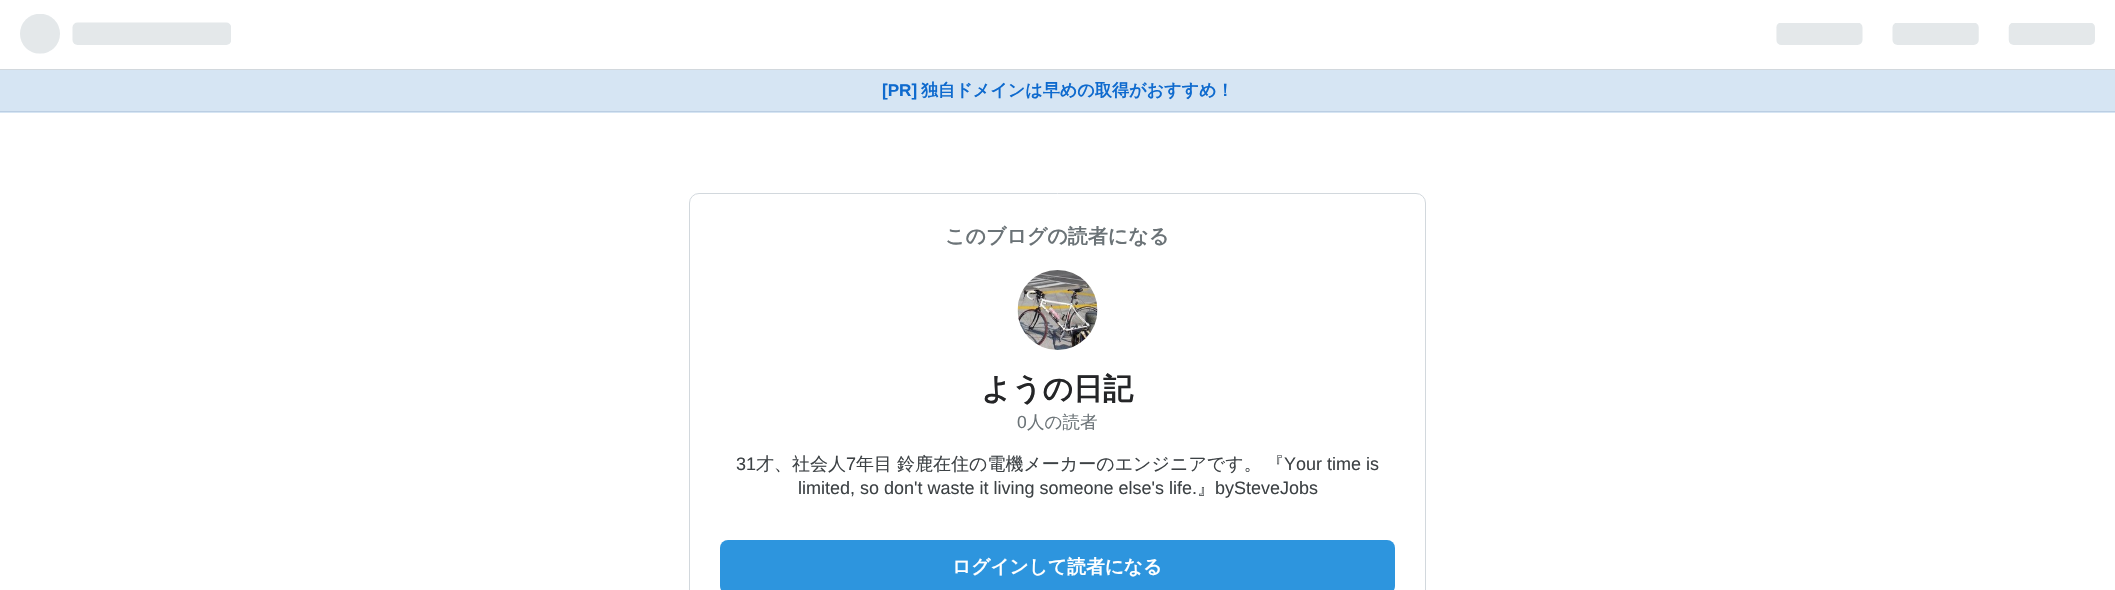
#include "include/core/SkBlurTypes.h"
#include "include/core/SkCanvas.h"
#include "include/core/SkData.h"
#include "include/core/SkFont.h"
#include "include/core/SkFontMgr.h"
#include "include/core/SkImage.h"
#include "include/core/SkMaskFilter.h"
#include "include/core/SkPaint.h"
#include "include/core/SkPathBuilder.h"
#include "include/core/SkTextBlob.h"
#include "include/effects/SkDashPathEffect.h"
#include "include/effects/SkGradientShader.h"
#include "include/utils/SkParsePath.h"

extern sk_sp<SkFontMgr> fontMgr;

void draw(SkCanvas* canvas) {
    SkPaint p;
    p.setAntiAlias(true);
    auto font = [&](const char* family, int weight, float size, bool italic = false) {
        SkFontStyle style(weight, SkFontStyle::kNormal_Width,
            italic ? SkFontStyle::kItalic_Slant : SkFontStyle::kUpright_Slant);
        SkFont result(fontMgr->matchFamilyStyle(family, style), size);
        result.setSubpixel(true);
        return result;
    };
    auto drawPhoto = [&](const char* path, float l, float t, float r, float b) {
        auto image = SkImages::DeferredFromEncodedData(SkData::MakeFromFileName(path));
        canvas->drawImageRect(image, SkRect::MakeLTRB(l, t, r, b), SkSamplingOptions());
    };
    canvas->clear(0xFFFFFFFF);
    p.setColor(0xFFD2D8DD);
    canvas->drawRect(SkRect::MakeLTRB(0, 69, 2115, 70), p);
    drawPhoto("media/1.png", 20, 14, 231, 54);
    drawPhoto("media/2.png", 1776, 23, 2095, 45);
    p.setColor(0xFFD6E5F3);
    canvas->drawRect(SkRect::MakeLTRB(0, 70, 2115, 113), p);
    p.setColor(0xFFBBCEE3);
    canvas->drawRect(SkRect::MakeLTRB(0, 111, 2115, 112), p);
    auto font1 = font("Liberation Sans", 700, 17.1f);
    p.setColor(0xFF0E6ACE);
    canvas->drawString("[PR]", 882, 96, font1, p);
    auto font2 = font("WenQuanYi Zen Hei", 700, 17.1f);
    canvas->drawString("独自ドメインは早めの取得がおすすめ！", 921, 96, font2, p);
    p.setStyle(SkPaint::kStroke_Style);
    p.setStrokeWidth(1);
    p.setColor(0xFFD2D8DD);
    canvas->drawRoundRect(SkRect::MakeLTRB(689.5f, 193.5f, 1425.5f, 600.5f), 9.5f, 9.5f, p);
    auto font3 = font("WenQuanYi Zen Hei", 700, 20);
    p.setStyle(SkPaint::kFill_Style);
    p.setColor(0xFF6B7377);
    canvas->drawString("このブログの読者になる", 945, 243, font3, p);
    drawPhoto("media/3.png", 1017, 270, 1098, 350);
    auto font4 = font("WenQuanYi Zen Hei", 700, 30);
    p.setColor(0xFF242527);
    canvas->drawString("ようの日記", 981, 399, font4, p);
    auto font5 = font("Liberation Sans", 400, 17.5f);
    p.setColor(0xFF6B7377);
    canvas->drawString("0", 1017, 428, font5, p);
    auto font6 = font("WenQuanYi Zen Hei", 500, 17.5f);
    canvas->drawString("人の読者", 1027, 428, font6, p);
    auto font7 = font("Liberation Sans", 400, 18);
    p.setColor(0xFF3D4245);
    canvas->drawString("31", 736, 470, font7, p);
    auto font8 = font("WenQuanYi Zen Hei", 500, 18);
    canvas->drawString("才、社会人", 756, 470, font8, p);
    canvas->drawString("7", 846, 470, font7, p);
    {
        const struct { const char* s; float x, y; } items[] = {
            {"年目", 856, 470},
            {"鈴鹿在住の電機メーカーのエンジニアです。", 897, 470},
            {"『", 1266, 470},
        };
        for (auto [s, x, y] : items) {
            canvas->drawString(s, x, y, font8, p);
        }
    }
    canvas->drawString("Your time is", 1284, 470, font7, p);
    canvas->drawString("limited, so don't waste it living someone else's life.", 798, 494, font7, p);
    canvas->drawString("』", 1197, 494, font8, p);
    canvas->drawString("bySteveJobs", 1215, 494, font7, p);
    p.setColor(0xFF2D95DE);
    canvas->drawRoundRect(SkRect::MakeLTRB(720, 540, 1395, 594), 8, 8, p);
    auto font9 = font("WenQuanYi Zen Hei", 700, 18.75f);
    p.setColor(0xFFFFFFFF);
    canvas->drawString("ログインして読者になる", 952, 573, font9, p);
}
